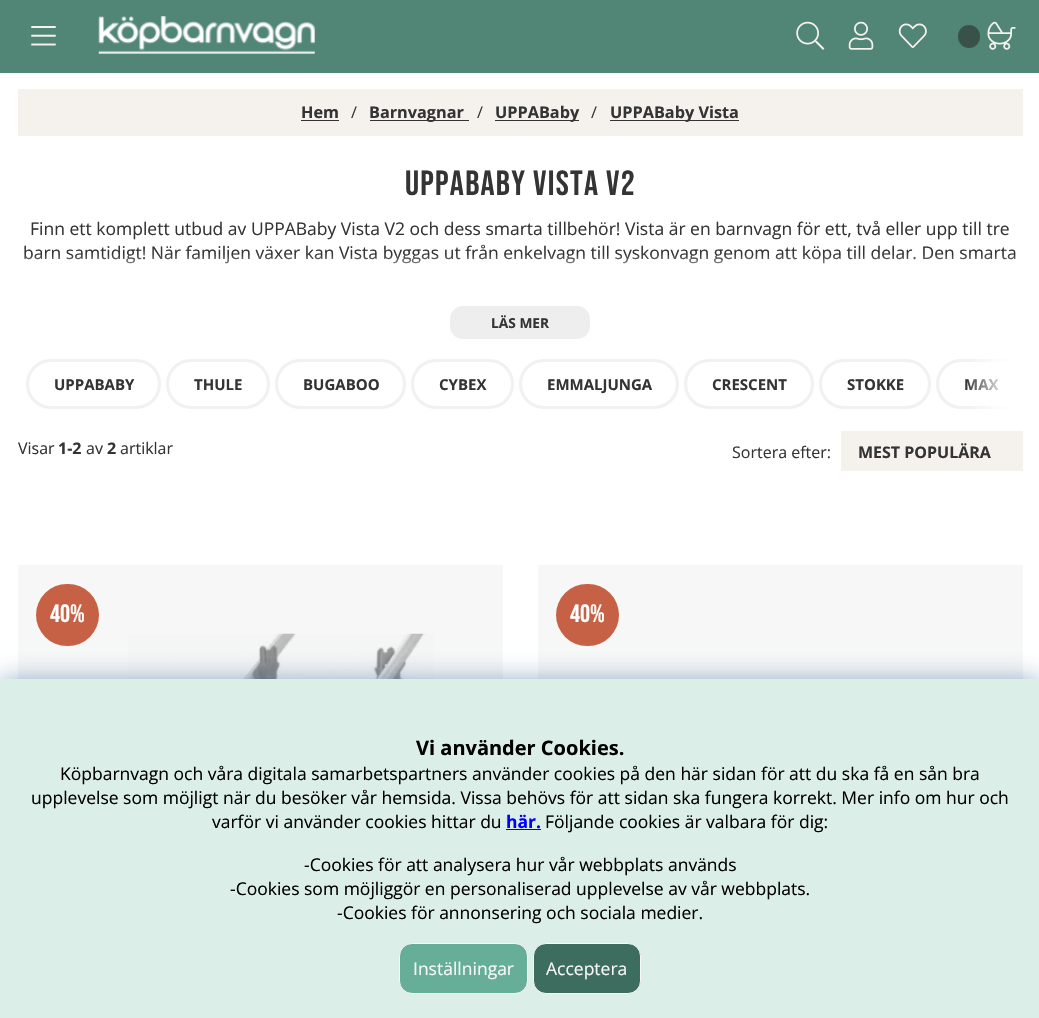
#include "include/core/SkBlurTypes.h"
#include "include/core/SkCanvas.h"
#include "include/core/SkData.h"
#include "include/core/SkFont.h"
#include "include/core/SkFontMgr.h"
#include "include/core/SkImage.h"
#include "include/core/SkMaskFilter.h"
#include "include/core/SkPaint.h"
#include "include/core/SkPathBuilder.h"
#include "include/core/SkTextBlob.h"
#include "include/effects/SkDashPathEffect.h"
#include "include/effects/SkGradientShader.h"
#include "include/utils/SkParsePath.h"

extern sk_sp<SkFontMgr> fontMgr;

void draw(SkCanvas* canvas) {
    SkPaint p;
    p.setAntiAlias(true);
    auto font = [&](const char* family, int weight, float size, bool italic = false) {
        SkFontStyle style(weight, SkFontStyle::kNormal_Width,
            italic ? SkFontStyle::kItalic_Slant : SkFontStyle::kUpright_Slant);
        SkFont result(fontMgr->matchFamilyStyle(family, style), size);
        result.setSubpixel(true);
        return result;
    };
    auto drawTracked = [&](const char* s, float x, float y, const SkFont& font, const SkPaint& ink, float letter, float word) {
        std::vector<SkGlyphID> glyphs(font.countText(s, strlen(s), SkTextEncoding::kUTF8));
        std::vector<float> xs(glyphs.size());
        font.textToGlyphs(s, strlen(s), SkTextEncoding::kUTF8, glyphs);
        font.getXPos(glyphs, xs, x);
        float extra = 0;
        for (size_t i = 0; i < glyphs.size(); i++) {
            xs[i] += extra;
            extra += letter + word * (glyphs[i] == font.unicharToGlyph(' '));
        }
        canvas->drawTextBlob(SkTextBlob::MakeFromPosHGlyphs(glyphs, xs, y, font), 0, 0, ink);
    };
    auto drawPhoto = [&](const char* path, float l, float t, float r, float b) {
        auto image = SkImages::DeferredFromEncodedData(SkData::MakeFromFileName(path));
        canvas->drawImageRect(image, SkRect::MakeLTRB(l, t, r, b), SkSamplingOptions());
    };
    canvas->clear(0xFFFFFFFF);
    {
        const struct { float l, t, r, b; SkColor color; } items[] = {
            {538, 565, 1023, 679, 0xFFF7F7F7},
            {18, 565, 503, 679, 0xFFF7F7F7},
            {0, 0, 1039, 73, 0xFF518575},
        };
        for (auto [l, t, r, b, color] : items) {
            p.setColor(color);
            canvas->drawRect(SkRect::MakeLTRB(l, t, r, b), p);
        }
    }
    drawPhoto("media/1.png", 31, 26, 56, 46);
    drawPhoto("media/2.png", 98, 16, 315, 54);
    drawPhoto("media/3.png", 796, 21, 825, 50);
    drawPhoto("media/4.png", 848, 21, 874, 50);
    drawPhoto("media/5.png", 898, 23, 927, 48);
    p.setColor(0xFF38524A);
    canvas->drawRoundRect(SkRect::MakeLTRB(958, 25, 980, 48), 11, 11, p);
    drawPhoto("media/6.png", 987, 21, 1016, 50);
    p.setColor(0xFFF5F2ED);
    canvas->drawRect(SkRect::MakeLTRB(18, 89, 1023, 136), p);
    auto font1 = font("Open Sans", 700, 16.25f);
    p.setColor(0xFF343434);
    canvas->drawString("Hem", 301, 118, font1, p);
    canvas->drawRect(SkRect::MakeLTRB(301, 120, 339, 121), p);
    auto font2 = font("Open Sans", 400, 16.25f);
    canvas->drawString("/", 351, 118, font2, p);
    canvas->drawRect(SkRect::MakeLTRB(370, 120, 469, 121), p);
    canvas->drawString("Barnvagnar", 369, 118, font1, p);
    canvas->drawString("/", 477, 118, font2, p);
    canvas->drawRect(SkRect::MakeLTRB(495, 120, 579, 121), p);
    canvas->drawString("UPPABaby", 495, 118, font1, p);
    canvas->drawString("/", 591, 118, font2, p);
    canvas->drawRect(SkRect::MakeLTRB(610, 120, 739, 121), p);
    canvas->drawString("UPPABaby Vista", 610, 118, font1, p);
    auto font3 = font("Bebas Neue", 400, 35);
    drawTracked("UPPABaby Vista V2", 405, 195, font3, p, 1.25f, 0);
    auto font4 = font("Open Sans", 400, 17.5f);
    canvas->drawString("Finn ett komplett utbud av UPPABaby Vista V2 och dess smarta tillbehör! Vista är en barnvagn för ett, två eller upp till tre", 30, 235, font4, p);
    canvas->drawString("barn samtidigt! När familjen växer kan Vista byggas ut från enkelvagn till syskonvagn genom att köpa till delar. Den smarta", 23, 259, font4, p);
    {
        const SkColor colors[] = {0xFFFFFFFF, 0x00FFFFFF};
        const float stops[] = {0.26f, 1};
        const SkPoint ends[] = {{520, 291}, {520, 254}};
        p.setShader(SkGradientShader::MakeLinear(ends, colors, stops, 2, SkTileMode::kClamp));
        p.setAlpha(255);
    }
    canvas->drawRect(SkRect::MakeLTRB(24, 255, 1016, 264), p);
    p.setShader(nullptr);
    p.setColor(0xFFEEEEEE);
    canvas->drawRoundRect(SkRect::MakeLTRB(450, 306, 590, 339), 13, 13, p);
    auto font5 = font("Open Sans", 700, 13.75f);
    p.setColor(0xFF343434);
    canvas->drawString("LÄS MER", 491, 328, font5, p);
    p.setStyle(SkPaint::kStroke_Style);
    p.setStrokeWidth(3);
    p.setColor(0xFFF1F1F1);
    canvas->drawRoundRect(SkRect::MakeLTRB(27.5f, 360.5f, 159.5f, 407.5f), 23.5f, 23.5f, p);
    auto font6 = font("Open Sans", 700, 15);
    p.setStyle(SkPaint::kFill_Style);
    p.setColor(0xFF343434);
    canvas->drawString("UPPABABY", 54, 390, font6, p);
    p.setStyle(SkPaint::kStroke_Style);
    p.setColor(0xFFF1F1F1);
    canvas->drawRoundRect(SkRect::MakeLTRB(167.5f, 360.5f, 268.5f, 407.5f), 23.5f, 23.5f, p);
    p.setStyle(SkPaint::kFill_Style);
    p.setColor(0xFF343434);
    canvas->drawString("THULE", 194, 390, font6, p);
    p.setStyle(SkPaint::kStroke_Style);
    p.setColor(0xFFF1F1F1);
    canvas->drawRoundRect(SkRect::MakeLTRB(276.5f, 360.5f, 404.5f, 407.5f), 23.5f, 23.5f, p);
    p.setStyle(SkPaint::kFill_Style);
    p.setColor(0xFF343434);
    canvas->drawString("BUGABOO", 303, 390, font6, p);
    p.setStyle(SkPaint::kStroke_Style);
    p.setColor(0xFFF1F1F1);
    canvas->drawRoundRect(SkRect::MakeLTRB(412.5f, 360.5f, 512.5f, 407.5f), 23.5f, 23.5f, p);
    p.setStyle(SkPaint::kFill_Style);
    p.setColor(0xFF343434);
    canvas->drawString("CYBEX", 439, 390, font6, p);
    p.setStyle(SkPaint::kStroke_Style);
    p.setColor(0xFFF1F1F1);
    canvas->drawRoundRect(SkRect::MakeLTRB(520.5f, 360.5f, 677.5f, 407.5f), 23.5f, 23.5f, p);
    p.setStyle(SkPaint::kFill_Style);
    p.setColor(0xFF343434);
    canvas->drawString("EMMALJUNGA", 547, 390, font6, p);
    p.setStyle(SkPaint::kStroke_Style);
    p.setColor(0xFFF1F1F1);
    canvas->drawRoundRect(SkRect::MakeLTRB(685.5f, 360.5f, 812.5f, 407.5f), 23.5f, 23.5f, p);
    p.setStyle(SkPaint::kFill_Style);
    p.setColor(0xFF343434);
    canvas->drawString("CRESCENT", 712, 390, font6, p);
    p.setStyle(SkPaint::kStroke_Style);
    p.setColor(0xFFF1F1F1);
    canvas->drawRoundRect(SkRect::MakeLTRB(820.5f, 360.5f, 929.5f, 407.5f), 23.5f, 23.5f, p);
    p.setStyle(SkPaint::kFill_Style);
    p.setColor(0xFF343434);
    canvas->drawString("STOKKE", 847, 390, font6, p);
    p.setStyle(SkPaint::kStroke_Style);
    p.setColor(0xFFF1F1F1);
    canvas->drawRoundRect(SkRect::MakeLTRB(937.5f, 360.5f, 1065.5f, 407.5f), 23.5f, 23.5f, p);
    p.setStyle(SkPaint::kFill_Style);
    p.setColor(0xFF343434);
    canvas->drawString("MAX", 964, 390, font6, p);
    {
        const SkColor colors[] = {0x00FFFFFF, 0xB3FFFFFF, 0xFFFFFFFF};
        const float stops[] = {0, 0.4f, 0.7f};
        const SkPoint ends[] = {{965, 386}, {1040, 386}};
        p.setShader(SkGradientShader::MakeLinear(ends, colors, stops, 3, SkTileMode::kClamp));
        p.setAlpha(255);
    }
    canvas->drawRect(SkRect::MakeLTRB(966, 359, 1039, 409), p);
    auto font7 = font("Open Sans", 400, 16);
    p.setShader(nullptr);
    p.setColor(0xFF343434);
    canvas->drawString("Visar", 18, 454, font7, p);
    auto font8 = font("Open Sans", 700, 16);
    canvas->drawString("1-2", 58, 454, font8, p);
    canvas->drawString("av", 86, 454, font7, p);
    canvas->drawString("2", 107, 454, font8, p);
    canvas->drawString("artiklar", 120, 454, font7, p);
    canvas->drawString("Sortera efter:", 732, 458, font7, p);
    p.setColor(0xFFF5F2ED);
    canvas->drawRect(SkRect::MakeLTRB(841, 431, 1023, 471), p);
    p.setColor(0xFF343434);
    canvas->drawString("MEST POPULÄRA", 858, 458, font8, p);
    p.setColor(0xFFC76145);
    canvas->drawRoundRect(SkRect::MakeLTRB(36, 584, 99, 646), 31, 31, p);
    auto font9 = font("Bebas Neue", 400, 25);
    p.setColor(0xFFFFFFFF);
    canvas->drawString("40%", 50, 622, font9, p);
    drawPhoto("media/7.png", 128, 633, 434, 679);
    p.setColor(0xFFC76145);
    canvas->drawRoundRect(SkRect::MakeLTRB(556, 584, 619, 646), 31, 31, p);
    p.setColor(0xFFFFFFFF);
    canvas->drawString("40%", 570, 622, font9, p);
    p.setColor(0x7000427A);
    p.setMaskFilter(SkMaskFilter::MakeBlur(kNormal_SkBlurStyle, 12.5f));
    canvas->drawRect(SkRect::MakeLTRB(0, 680, 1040, 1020), p);
    p.setMaskFilter(nullptr);
    p.setColor(0xFFDCEEE8);
    canvas->drawRect(SkRect::MakeLTRB(0, 679, 1039, 1018), p);
    auto font10 = font("Open Sans", 700, 20);
    p.setColor(0xFF000000);
    canvas->drawString("Vi använder Cookies.", 416, 755, font10, p);
    {
        const struct { const char* s; float x, y; } items[] = {
            {"Köpbarnvagn och våra digitala samarbetspartners använder cookies på den här sidan för att du ska få en sån bra", 60, 780},
            {"upplevelse som möjligt när du besöker vår hemsida. Vissa behövs för att sidan ska fungera korrekt. Mer info om hur och", 31, 804},
            {"varför vi använder cookies hittar du", 212, 828},
        };
        for (auto [s, x, y] : items) {
            canvas->drawString(s, x, y, font4, p);
        }
    }
    auto font11 = font("Open Sans", 700, 17.5f);
    p.setColor(0xFF0000FF);
    canvas->drawString("här.", 506, 828, font11, p);
    canvas->drawRect(SkRect::MakeLTRB(506, 829, 541, 830), p);
    p.setColor(0xFF000000);
    {
        const struct { const char* s; float x, y; } items[] = {
            {"Följande cookies är valbara för dig:", 545, 828},
            {"-Cookies för att analysera hur vår webbplats används", 304, 871},
            {"-Cookies som möjliggör en personaliserad upplevelse av vår webbplats.", 230, 895},
            {"-Cookies för annonsering och sociala medier.", 337, 919},
        };
        for (auto [s, x, y] : items) {
            canvas->drawString(s, x, y, font4, p);
        }
    }
    p.setColor(0xFF67AE98);
    canvas->drawRoundRect(SkRect::MakeLTRB(399.5f, 943.5f, 527.5f, 993.5f), 12.5f, 12.5f, p);
    p.setStyle(SkPaint::kStroke_Style);
    p.setStrokeWidth(1);
    p.setColor(0xFFF7F7F7);
    canvas->drawRoundRect(SkRect::MakeLTRB(399.5f, 943.5f, 527.5f, 993.5f), 12.5f, 12.5f, p);
    p.setStyle(SkPaint::kFill_Style);
    canvas->drawString("Inställningar", 413, 975, font4, p);
    p.setColor(0xFF3D6D5E);
    canvas->drawRoundRect(SkRect::MakeLTRB(533.5f, 943.5f, 640.5f, 993.5f), 12.5f, 12.5f, p);
    p.setStyle(SkPaint::kStroke_Style);
    p.setColor(0xFFF7F7F7);
    canvas->drawRoundRect(SkRect::MakeLTRB(533.5f, 943.5f, 640.5f, 993.5f), 12.5f, 12.5f, p);
    p.setStyle(SkPaint::kFill_Style);
    canvas->drawString("Acceptera", 546, 975, font4, p);
}
